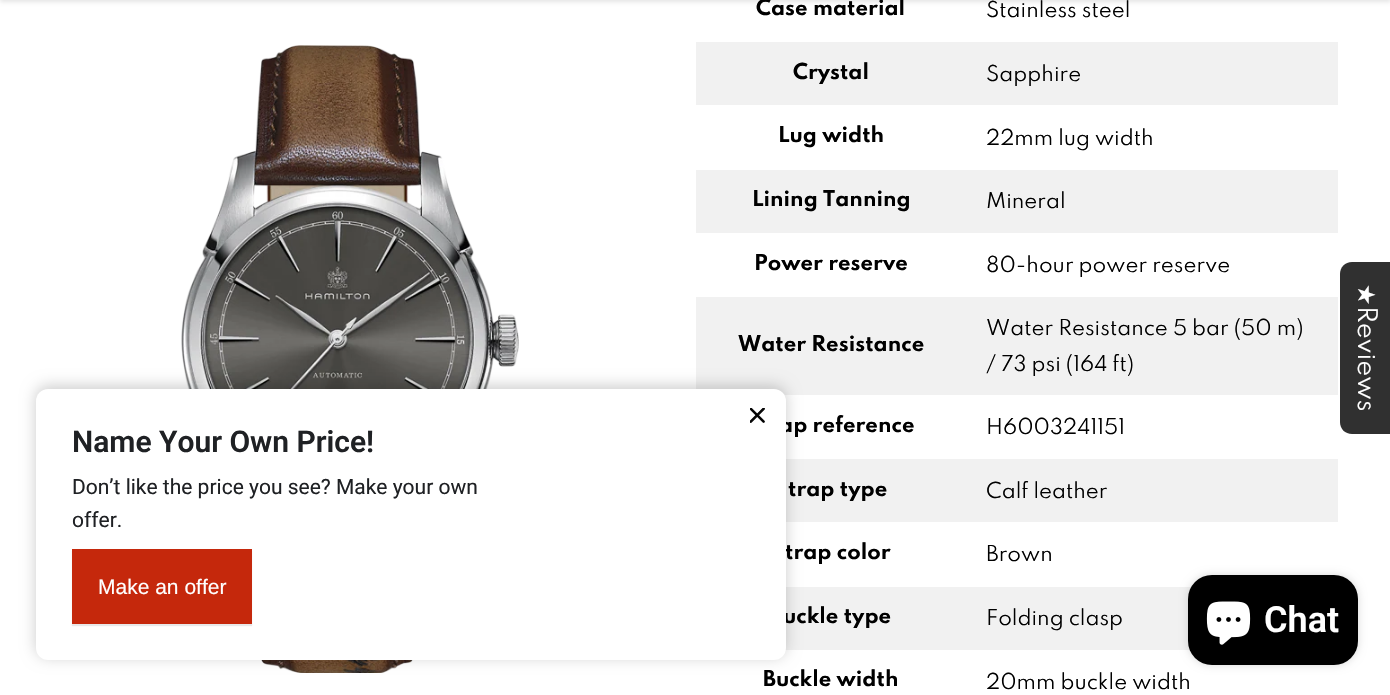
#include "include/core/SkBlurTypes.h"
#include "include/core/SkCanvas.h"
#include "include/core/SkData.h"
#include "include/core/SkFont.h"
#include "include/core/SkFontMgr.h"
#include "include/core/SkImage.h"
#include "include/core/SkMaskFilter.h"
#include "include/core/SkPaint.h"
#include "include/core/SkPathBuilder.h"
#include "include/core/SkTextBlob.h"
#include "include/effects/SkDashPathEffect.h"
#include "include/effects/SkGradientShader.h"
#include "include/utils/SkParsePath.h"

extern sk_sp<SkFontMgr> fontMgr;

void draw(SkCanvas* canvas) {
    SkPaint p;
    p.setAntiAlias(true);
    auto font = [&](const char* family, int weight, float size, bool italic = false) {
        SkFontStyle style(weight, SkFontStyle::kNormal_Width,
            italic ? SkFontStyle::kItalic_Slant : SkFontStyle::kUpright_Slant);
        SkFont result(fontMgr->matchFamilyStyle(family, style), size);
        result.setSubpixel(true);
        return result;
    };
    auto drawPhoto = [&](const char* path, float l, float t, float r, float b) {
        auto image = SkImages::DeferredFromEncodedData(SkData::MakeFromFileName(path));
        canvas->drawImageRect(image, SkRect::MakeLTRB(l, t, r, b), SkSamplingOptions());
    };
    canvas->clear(0xFFFFFFFF);
    p.setColor(0x1A000000);
    p.setMaskFilter(SkMaskFilter::MakeBlur(kNormal_SkBlurStyle, 2));
    canvas->drawRect(SkRect::MakeLTRB(0, -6, 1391, 2), p);
    p.setMaskFilter(nullptr);
    drawPhoto("media/1.png", 181, 45, 519, 673);
    auto font1 = font("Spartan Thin", 700, 19.5f);
    p.setColor(0xFF000000);
    canvas->drawString("Case material", 756, 15, font1, p);
    auto font2 = font("Spartan Thin", 400, 19.5f);
    canvas->drawString("Stainless steel", 986, 17, font2, p);
    p.setColor(0xFFF1F1F1);
    canvas->drawRect(SkRect::MakeLTRB(696, 42, 1338, 105), p);
    p.setColor(0xFF000000);
    canvas->drawString("Crystal", 793, 79, font1, p);
    canvas->drawString("Sapphire", 986, 81, font2, p);
    canvas->drawString("Lug width", 778, 142, font1, p);
    canvas->drawString("22mm lug width", 986, 145, font2, p);
    p.setColor(0xFFF1F1F1);
    canvas->drawRect(SkRect::MakeLTRB(696, 170, 1338, 233), p);
    p.setColor(0xFF000000);
    canvas->drawString("Lining Tanning", 752, 206, font1, p);
    canvas->drawString("Mineral", 986, 208, font2, p);
    canvas->drawString("Power reserve", 754, 270, font1, p);
    canvas->drawString("80-hour power reserve", 986, 272, font2, p);
    p.setColor(0xFFF1F1F1);
    canvas->drawRect(SkRect::MakeLTRB(696, 297, 1338, 395), p);
    p.setColor(0xFF000000);
    canvas->drawString("Water Resistance", 738, 351, font1, p);
    canvas->drawString("Water Resistance 5 bar (50 m)", 986, 335, font2, p);
    canvas->drawString("/ 73 psi (164 ft)", 986, 371, font2, p);
    canvas->drawString("ap reference", 779, 432, font1, p);
    canvas->drawString("H6003241151", 986, 434, font2, p);
    p.setColor(0xFFF1F1F1);
    canvas->drawRect(SkRect::MakeLTRB(786, 459, 1338, 522), p);
    p.setColor(0xFF000000);
    canvas->drawString("trap type", 788, 496, font1, p);
    canvas->drawString("Calf leather", 986, 498, font2, p);
    canvas->drawString("trap color", 785, 559, font1, p);
    canvas->drawString("Brown", 986, 561, font2, p);
    p.setColor(0xFFF1F1F1);
    canvas->drawRect(SkRect::MakeLTRB(785, 587, 1192, 650), p);
    p.setColor(0xFF000000);
    canvas->drawString("uckle type", 783, 623, font1, p);
    canvas->drawString("Folding clasp", 986, 625, font2, p);
    canvas->drawString("Buckle width", 763, 686, font1, p);
    canvas->drawString("20mm buckle width", 986, 689, font2, p);
    p.setColor(0xFF303030);
    canvas->drawPath(SkPathBuilder().moveTo(1390, 262).lineTo(1390, 434).lineTo(1352, 434).cubicTo(1345, 434, 1340, 429, 1340, 422).lineTo(1340, 274).cubicTo(1340, 267, 1345, 262, 1352, 262).close().detach(), p);
    auto font3 = font("DejaVu Sans", 400, 24);
    p.setColor(0xFFFFFFFF);
    canvas->save();
    canvas->rotate(90, 1358, 284);
    canvas->drawString("★", 1358, 284, font3, p);
    canvas->restore();
    auto font4 = font("Spartan Thin", 400, 24);
    canvas->save();
    canvas->rotate(90, 1358, 306);
    canvas->drawString("Reviews", 1358, 306, font4, p);
    canvas->restore();
    p.setColor(0x33000000);
    p.setMaskFilter(SkMaskFilter::MakeBlur(kNormal_SkBlurStyle, 7.5f));
    canvas->drawRoundRect(SkRect::MakeLTRB(36, 386, 786, 657), 12, 12, p);
    p.setMaskFilter(nullptr);
    p.setColor(0xFFFFFFFF);
    canvas->drawRoundRect(SkRect::MakeLTRB(36, 389, 786, 660), 12, 12, p);
    drawPhoto("media/2.png", 750, 408, 765, 423);
    auto font5 = font("Roboto", 600, 30);
    p.setColor(0xFF1F2124);
    canvas->drawString("Name Your Own Price!", 72, 452, font5, p);
    auto font6 = font("Roboto", 400, 21);
    canvas->drawString("Don’t like the price you see? Make your own", 72, 494, font6, p);
    canvas->drawString("offer.", 72, 527, font6, p);
    p.setColor(0x1A1F2124);
    p.setMaskFilter(SkMaskFilter::MakeBlur(kNormal_SkBlurStyle, 0.5f));
    canvas->drawRect(SkRect::MakeLTRB(72, 551, 252, 626), p);
    p.setMaskFilter(nullptr);
    p.setColor(0xFFC5280C);
    canvas->drawRect(SkRect::MakeLTRB(72, 549, 252, 624), p);
    auto font7 = font("Liberation Sans", 400, 21);
    p.setColor(0xFFFFFFFF);
    canvas->drawString("Make an offer", 98, 594, font7, p);
    p.setColor(0x26000000);
    p.setMaskFilter(SkMaskFilter::MakeBlur(kNormal_SkBlurStyle, 4));
    canvas->drawRoundRect(SkRect::MakeLTRB(1188, 575, 1358, 665), 24, 24, p);
    p.setMaskFilter(nullptr);
    p.setColor(0xFF000000);
    canvas->drawRoundRect(SkRect::MakeLTRB(1188, 575, 1358, 665), 24, 24, p);
    drawPhoto("media/3.png", 1206, 601, 1251, 645);
    auto font8 = font("Roboto", 600, 36);
    p.setColor(0xFFFFFFFF);
    canvas->drawString("Chat", 1264, 632, font8, p);
}
